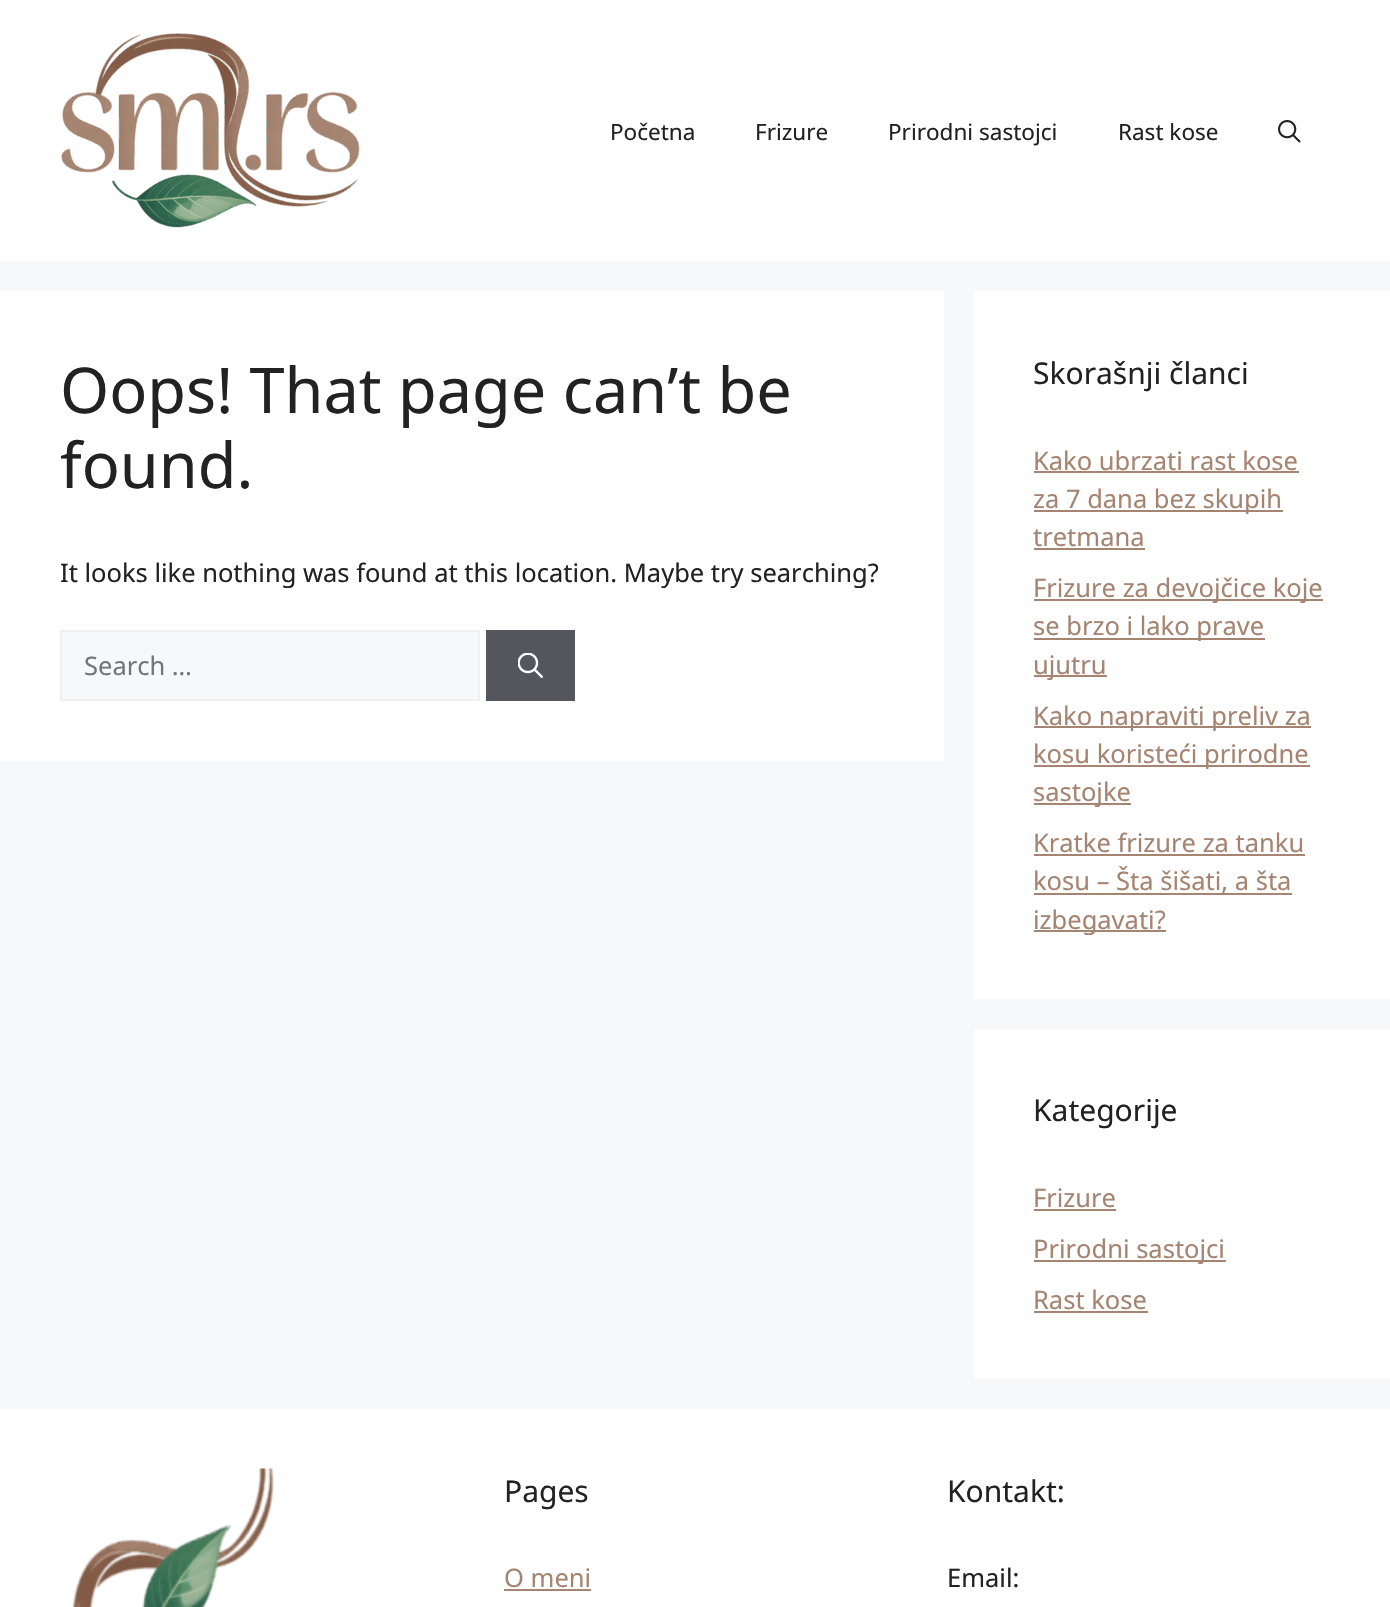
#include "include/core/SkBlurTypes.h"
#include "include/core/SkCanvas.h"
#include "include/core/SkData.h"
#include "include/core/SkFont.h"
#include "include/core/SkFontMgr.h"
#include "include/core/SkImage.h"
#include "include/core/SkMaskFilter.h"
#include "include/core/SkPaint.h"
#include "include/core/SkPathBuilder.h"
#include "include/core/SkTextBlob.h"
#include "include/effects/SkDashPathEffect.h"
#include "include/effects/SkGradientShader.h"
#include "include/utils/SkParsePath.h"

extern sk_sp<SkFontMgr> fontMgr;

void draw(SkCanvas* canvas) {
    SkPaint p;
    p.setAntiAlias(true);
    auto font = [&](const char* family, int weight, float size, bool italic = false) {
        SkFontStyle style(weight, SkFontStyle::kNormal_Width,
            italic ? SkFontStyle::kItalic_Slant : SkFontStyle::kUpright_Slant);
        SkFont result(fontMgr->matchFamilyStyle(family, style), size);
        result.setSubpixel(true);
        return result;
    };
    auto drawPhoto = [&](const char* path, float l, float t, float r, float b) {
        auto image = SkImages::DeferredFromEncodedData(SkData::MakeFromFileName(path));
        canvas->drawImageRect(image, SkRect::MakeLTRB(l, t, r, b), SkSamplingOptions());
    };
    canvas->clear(0xFFF7F8F9);
    p.setColor(0xFFFFFFFF);
    canvas->drawRect(SkRect::MakeLTRB(0, 0, 1390, 261), p);
    drawPhoto("media/1.png", 61, 33, 360, 228);
    auto font1 = font("Noto Sans", 400, 22.5f);
    p.setColor(0xFF222222);
    {
        const struct { const char* s; float x, y; } items[] = {
            {"Početna", 610, 140},
            {"Frizure", 755, 140},
            {"Prirodni sastojci", 888, 140},
            {"Rast kose", 1118, 140},
        };
        for (auto [s, x, y] : items) {
            canvas->drawString(s, x, y, font1, p);
        }
    }
    drawPhoto("media/2.png", 1278, 120, 1301, 143);
    p.setColor(0xFFFFFFFF);
    canvas->drawRect(SkRect::MakeLTRB(0, 291, 944, 761), p);
    auto font2 = font("Noto Sans", 400, 63);
    p.setColor(0xFF222222);
    canvas->drawString("Oops! That page can’t be", 60, 413, font2, p);
    canvas->drawString("found.", 60, 488, font2, p);
    auto font3 = font("Noto Sans", 400, 25.5f);
    canvas->drawString("It looks like nothing was found at this location. Maybe try searching?", 60, 582, font3, p);
    p.setColor(0xFFF7F8F9);
    canvas->drawRect(SkRect::MakeLTRB(61, 631, 479, 700), p);
    p.setStyle(SkPaint::kStroke_Style);
    p.setStrokeWidth(2);
    p.setColor(0xFFF0F0F0);
    canvas->drawRect(SkRect::MakeLTRB(61, 631, 479, 700), p);
    p.setStyle(SkPaint::kFill_Style);
    p.setColor(0xFF757575);
    canvas->drawString("Search …", 84, 675, font3, p);
    p.setColor(0xFF55555E);
    canvas->drawRect(SkRect::MakeLTRB(486, 630, 575, 701), p);
    drawPhoto("media/3.png", 518, 653, 543, 678);
    p.setColor(0xFFFFFFFF);
    canvas->drawRect(SkRect::MakeLTRB(974, 291, 1390, 999), p);
    auto font4 = font("Noto Sans", 400, 30);
    p.setColor(0xFF222222);
    canvas->drawString("Skorašnji članci", 1033, 384, font4, p);
    p.setColor(0xFFA58471);
    canvas->drawString("Kako ubrzati rast kose", 1033, 470, font3, p);
    canvas->drawRect(SkRect::MakeLTRB(1034, 471, 1299, 473), p);
    canvas->drawRect(SkRect::MakeLTRB(1034, 510, 1283, 512), p);
    canvas->drawString("za 7 dana bez skupih", 1033, 508, font3, p);
    canvas->drawString("tretmana", 1033, 546, font3, p);
    canvas->drawRect(SkRect::MakeLTRB(1034, 548, 1145, 550), p);
    canvas->drawRect(SkRect::MakeLTRB(1034, 599, 1323, 601), p);
    canvas->drawString("Frizure za devojčice koje", 1033, 597, font3, p);
    canvas->drawRect(SkRect::MakeLTRB(1034, 638, 1265, 640), p);
    canvas->drawString("se brzo i lako prave", 1033, 635, font3, p);
    canvas->drawRect(SkRect::MakeLTRB(1034, 675, 1107, 677), p);
    canvas->drawString("ujutru", 1033, 674, font3, p);
    canvas->drawRect(SkRect::MakeLTRB(1034, 726, 1311, 728), p);
    canvas->drawString("Kako napraviti preliv za", 1033, 725, font3, p);
    canvas->drawRect(SkRect::MakeLTRB(1034, 765, 1310, 767), p);
    canvas->drawString("kosu koristeći prirodne", 1033, 763, font3, p);
    canvas->drawRect(SkRect::MakeLTRB(1034, 803, 1131, 805), p);
    canvas->drawString("sastojke", 1033, 801, font3, p);
    canvas->drawString("Kratke frizure za tanku", 1033, 852, font3, p);
    canvas->drawRect(SkRect::MakeLTRB(1034, 854, 1305, 856), p);
    canvas->drawRect(SkRect::MakeLTRB(1034, 893, 1292, 895), p);
    canvas->drawString("kosu – Šta šišati, a šta", 1033, 890, font3, p);
    canvas->drawRect(SkRect::MakeLTRB(1034, 930, 1166, 932), p);
    canvas->drawString("izbegavati?", 1033, 929, font3, p);
    p.setColor(0xFFFFFFFF);
    canvas->drawRect(SkRect::MakeLTRB(974, 1029, 1390, 1379), p);
    p.setColor(0xFF222222);
    canvas->drawString("Kategorije", 1033, 1121, font4, p);
    p.setColor(0xFFA58471);
    canvas->drawString("Frizure", 1033, 1207, font3, p);
    canvas->drawRect(SkRect::MakeLTRB(1034, 1209, 1116, 1211), p);
    canvas->drawRect(SkRect::MakeLTRB(1034, 1260, 1226, 1262), p);
    canvas->drawString("Prirodni sastojci", 1033, 1258, font3, p);
    canvas->drawString("Rast kose", 1033, 1309, font3, p);
    canvas->drawRect(SkRect::MakeLTRB(1034, 1311, 1148, 1313), p);
    p.setColor(0xFFFFFFFF);
    canvas->drawRect(SkRect::MakeLTRB(0, 1409, 1390, 1607), p);
    drawPhoto("media/4.png", 72, 1468, 274, 1607);
    p.setColor(0xFF222222);
    canvas->drawString("Pages", 504, 1502, font4, p);
    p.setColor(0xFFA58471);
    canvas->drawString("O meni", 504, 1587, font3, p);
    canvas->drawRect(SkRect::MakeLTRB(504, 1589, 591, 1591), p);
    p.setColor(0xFF222222);
    canvas->drawString("Kontakt:", 947, 1502, font4, p);
    canvas->drawString("Email:", 947, 1587, font3, p);
}
